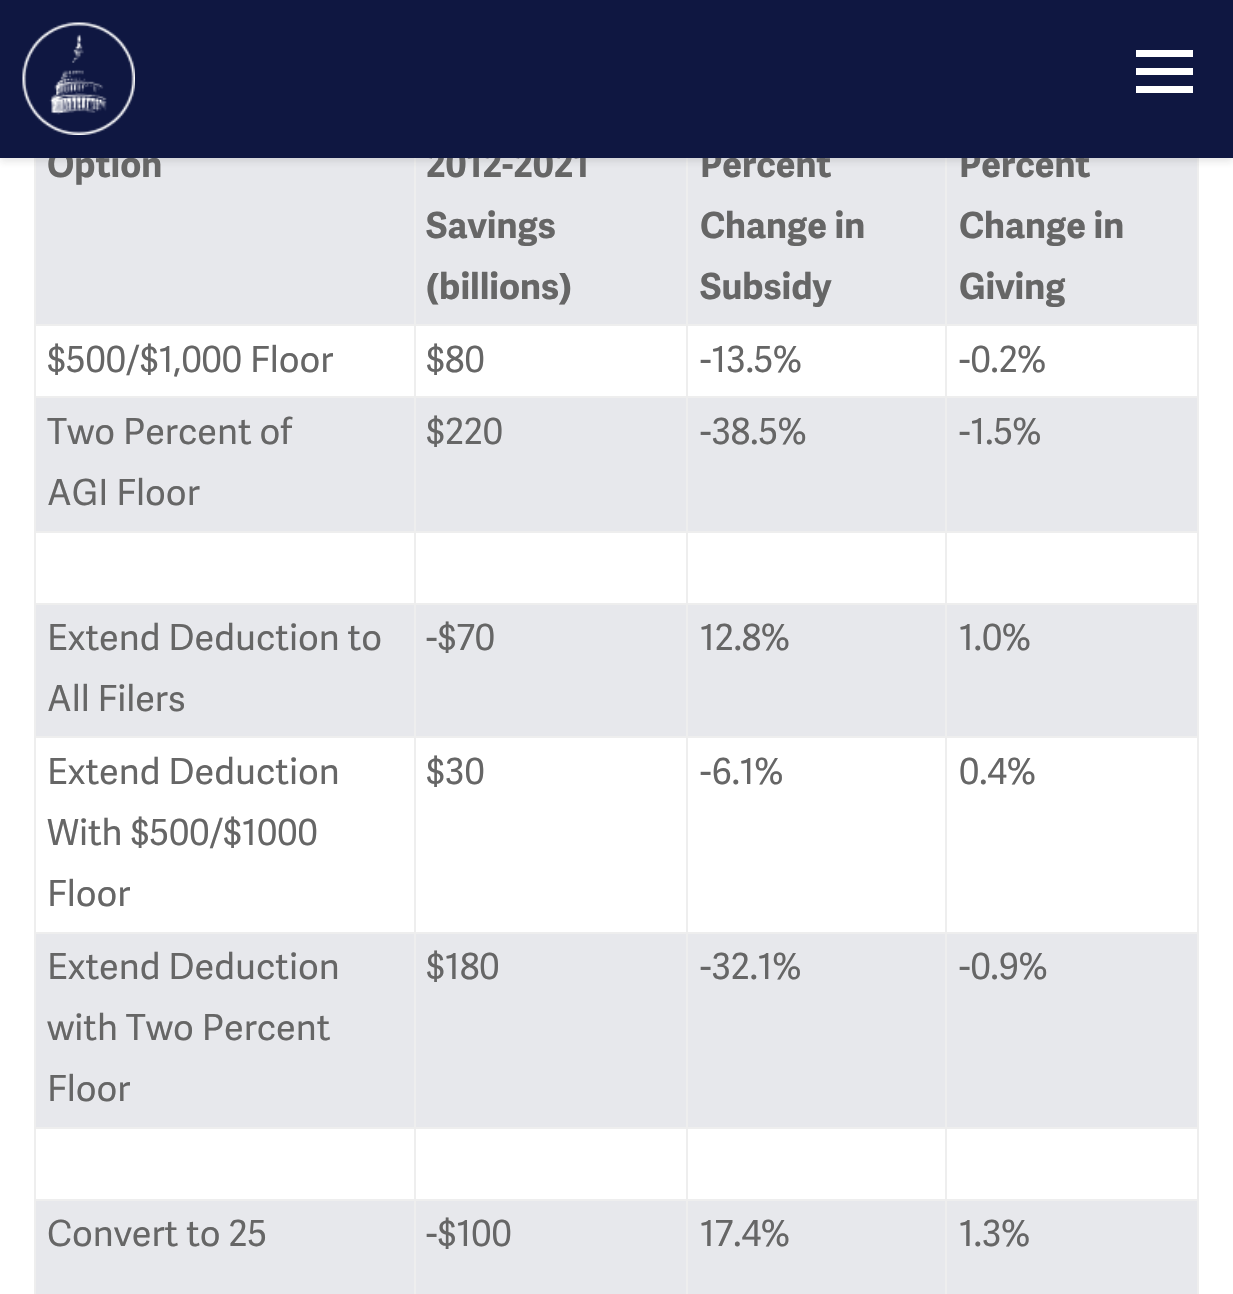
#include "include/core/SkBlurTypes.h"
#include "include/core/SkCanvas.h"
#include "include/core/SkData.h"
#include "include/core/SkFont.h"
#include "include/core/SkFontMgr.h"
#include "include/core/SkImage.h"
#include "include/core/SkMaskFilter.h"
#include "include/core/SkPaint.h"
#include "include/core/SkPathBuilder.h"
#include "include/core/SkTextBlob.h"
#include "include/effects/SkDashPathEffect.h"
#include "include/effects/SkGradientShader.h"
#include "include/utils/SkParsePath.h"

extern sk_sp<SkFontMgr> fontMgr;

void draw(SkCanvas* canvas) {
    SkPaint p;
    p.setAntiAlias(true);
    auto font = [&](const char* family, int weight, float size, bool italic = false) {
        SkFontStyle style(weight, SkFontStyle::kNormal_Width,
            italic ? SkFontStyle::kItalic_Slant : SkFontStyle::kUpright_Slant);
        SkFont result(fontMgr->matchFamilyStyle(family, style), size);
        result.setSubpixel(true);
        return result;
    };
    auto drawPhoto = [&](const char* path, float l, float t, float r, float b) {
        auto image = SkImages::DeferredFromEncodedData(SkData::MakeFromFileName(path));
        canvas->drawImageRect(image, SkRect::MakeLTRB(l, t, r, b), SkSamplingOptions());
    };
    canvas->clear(0xFFFFFFFF);
    {
        const struct { float l, t, r, b; SkColor color; } items[] = {
            {36, 158, 1197, 324, 0xFFE7E8EC},
            {945, 324, 1199, 326, 0xFFEEEEEE},
            {945, 396, 1199, 398, 0xFFEEEEEE},
            {36, 398, 1197, 531, 0xFFE7E8EC},
            {945, 531, 1199, 533, 0xFFEEEEEE},
            {945, 603, 1199, 605, 0xFFEEEEEE},
            {36, 605, 1197, 736, 0xFFE7E8EC},
            {945, 736, 1199, 738, 0xFFEEEEEE},
            {945, 932, 1199, 934, 0xFFEEEEEE},
            {36, 934, 1197, 1127, 0xFFE7E8EC},
            {945, 1127, 1199, 1129, 0xFFEEEEEE},
            {36, 1201, 1197, 1294, 0xFFE7E8EC},
            {945, 1199, 1199, 1201, 0xFFEEEEEE},
            {945, 1199, 947, 1294, 0xFFEEEEEE},
            {686, 1199, 947, 1201, 0xFFEEEEEE},
            {945, 1127, 947, 1202, 0xFFEEEEEE},
            {686, 1127, 947, 1129, 0xFFEEEEEE},
            {945, 932, 947, 1130, 0xFFEEEEEE},
            {686, 932, 947, 934, 0xFFEEEEEE},
            {945, 736, 947, 934, 0xFFEEEEEE},
            {686, 736, 947, 738, 0xFFEEEEEE},
            {945, 603, 947, 738, 0xFFEEEEEE},
            {686, 603, 947, 605, 0xFFEEEEEE},
            {945, 531, 947, 605, 0xFFEEEEEE},
            {686, 531, 947, 533, 0xFFEEEEEE},
            {945, 396, 947, 533, 0xFFEEEEEE},
            {686, 396, 947, 398, 0xFFEEEEEE},
            {945, 324, 947, 398, 0xFFEEEEEE},
            {686, 324, 947, 326, 0xFFEEEEEE},
            {686, 1199, 688, 1294, 0xFFEEEEEE},
            {414, 1199, 689, 1201, 0xFFEEEEEE},
            {686, 1127, 688, 1202, 0xFFEEEEEE},
            {414, 1127, 689, 1129, 0xFFEEEEEE},
            {686, 932, 688, 1130, 0xFFEEEEEE},
            {414, 932, 689, 934, 0xFFEEEEEE},
            {686, 736, 688, 934, 0xFFEEEEEE},
            {414, 736, 689, 738, 0xFFEEEEEE},
            {686, 603, 688, 738, 0xFFEEEEEE},
            {414, 603, 689, 605, 0xFFEEEEEE},
            {686, 531, 688, 605, 0xFFEEEEEE},
            {414, 531, 689, 533, 0xFFEEEEEE},
            {686, 396, 688, 533, 0xFFEEEEEE},
            {414, 396, 689, 398, 0xFFEEEEEE},
            {686, 324, 688, 398, 0xFFEEEEEE},
            {414, 324, 689, 326, 0xFFEEEEEE},
            {414, 1199, 416, 1294, 0xFFEEEEEE},
            {34, 1199, 416, 1201, 0xFFEEEEEE},
            {414, 1127, 416, 1202, 0xFFEEEEEE},
            {34, 1127, 416, 1129, 0xFFEEEEEE},
            {414, 932, 416, 1130, 0xFFEEEEEE},
            {34, 932, 416, 934, 0xFFEEEEEE},
            {414, 736, 416, 934, 0xFFEEEEEE},
            {34, 736, 416, 738, 0xFFEEEEEE},
            {414, 603, 416, 738, 0xFFEEEEEE},
            {34, 603, 416, 605, 0xFFEEEEEE},
            {414, 531, 416, 605, 0xFFEEEEEE},
            {34, 531, 416, 533, 0xFFEEEEEE},
            {414, 396, 416, 533, 0xFFEEEEEE},
            {34, 396, 416, 398, 0xFFEEEEEE},
            {414, 324, 416, 398, 0xFFEEEEEE},
            {34, 324, 416, 326, 0xFFEEEEEE},
            {414, 158, 416, 326, 0xFFEEEEEE},
            {686, 158, 688, 326, 0xFFEEEEEE},
            {945, 158, 947, 326, 0xFFEEEEEE},
            {34, 1199, 36, 1294, 0xFFEEEEEE},
            {34, 1127, 36, 1202, 0xFFEEEEEE},
            {34, 932, 36, 1130, 0xFFEEEEEE},
            {34, 736, 36, 934, 0xFFEEEEEE},
            {34, 603, 36, 738, 0xFFEEEEEE},
            {34, 531, 36, 605, 0xFFEEEEEE},
            {34, 396, 36, 533, 0xFFEEEEEE},
            {34, 158, 36, 398, 0xFFEEEEEE},
            {1197, 1199, 1199, 1294, 0xFFEEEEEE},
            {1197, 1127, 1199, 1202, 0xFFEEEEEE},
            {1197, 932, 1199, 1130, 0xFFEEEEEE},
            {1197, 736, 1199, 934, 0xFFEEEEEE},
            {1197, 603, 1199, 738, 0xFFEEEEEE},
            {1197, 531, 1199, 605, 0xFFEEEEEE},
            {1197, 396, 1199, 533, 0xFFEEEEEE},
            {1197, 158, 1199, 398, 0xFFEEEEEE},
        };
        for (auto [l, t, r, b, color] : items) {
            p.setColor(color);
            canvas->drawRect(SkRect::MakeLTRB(l, t, r, b), p);
        }
    }
    p.setColor(0x1A222222);
    p.setMaskFilter(SkMaskFilter::MakeBlur(kNormal_SkBlurStyle, 3.5f));
    canvas->drawRect(SkRect::MakeLTRB(0, 5, 1233, 162), p);
    p.setMaskFilter(nullptr);
    auto font1 = font("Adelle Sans", 700, 36);
    p.setColor(0xFF666666);
    {
        const struct { const char* s; float x, y; } items[] = {
            {"Option", 47, 177},
            {"2012-2021", 426, 177},
            {"Percent", 700, 177},
            {"Percent", 959, 177},
        };
        for (auto [s, x, y] : items) {
            canvas->drawString(s, x, y, font1, p);
        }
    }
    p.setColor(0xFF0F1741);
    canvas->drawRect(SkRect::MakeLTRB(0, 0, 1233, 158), p);
    drawPhoto("media/1.png", 22, 22, 135, 135);
    {
        const struct { float l, t, r, b; SkColor color; } items[] = {
            {1136, 68, 1193, 75, 0xFFFFFFFF},
            {1136, 50, 1193, 57, 0xFFFFFFFF},
            {1136, 86, 1193, 93, 0xFFFFFFFF},
        };
        for (auto [l, t, r, b, color] : items) {
            p.setColor(color);
            canvas->drawRect(SkRect::MakeLTRB(l, t, r, b), p);
        }
    }
    p.setColor(0xFF666666);
    {
        const struct { const char* s; float x, y; } items[] = {
            {"Savings", 426, 238},
            {"(billions)", 426, 299},
            {"Change in", 700, 238},
            {"Subsidy", 700, 299},
            {"Change in", 959, 238},
            {"Giving", 959, 299},
        };
        for (auto [s, x, y] : items) {
            canvas->drawString(s, x, y, font1, p);
        }
    }
    auto font2 = font("Adelle Sans", 400, 36);
    {
        const struct { const char* s; float x, y; } items[] = {
            {"$500/$1,000 Floor", 47, 372},
            {"$80", 426, 372},
            {"-13.5%", 700, 372},
            {"-0.2%", 959, 372},
            {"Two Percent of", 47, 444},
            {"AGI Floor", 47, 505},
            {"$220", 426, 444},
            {"-38.5%", 700, 444},
            {"-1.5%", 959, 444},
            {"Extend Deduction to", 47, 650},
            {"All Filers", 47, 711},
            {"-$70", 426, 650},
            {"12.8%", 700, 650},
            {"1.0%", 959, 650},
            {"Extend Deduction", 47, 784},
            {"With $500/$1000", 47, 845},
            {"Floor", 47, 906},
            {"$30", 426, 784},
            {"-6.1%", 700, 784},
            {"0.4%", 959, 784},
            {"Extend Deduction", 47, 979},
            {"with Two Percent", 47, 1040},
            {"Floor", 47, 1101},
            {"$180", 426, 979},
            {"-32.1%", 700, 979},
            {"-0.9%", 959, 979},
            {"Convert to 25", 47, 1246},
            {"-$100", 426, 1246},
            {"17.4%", 700, 1246},
            {"1.3%", 959, 1246},
        };
        for (auto [s, x, y] : items) {
            canvas->drawString(s, x, y, font2, p);
        }
    }
}
